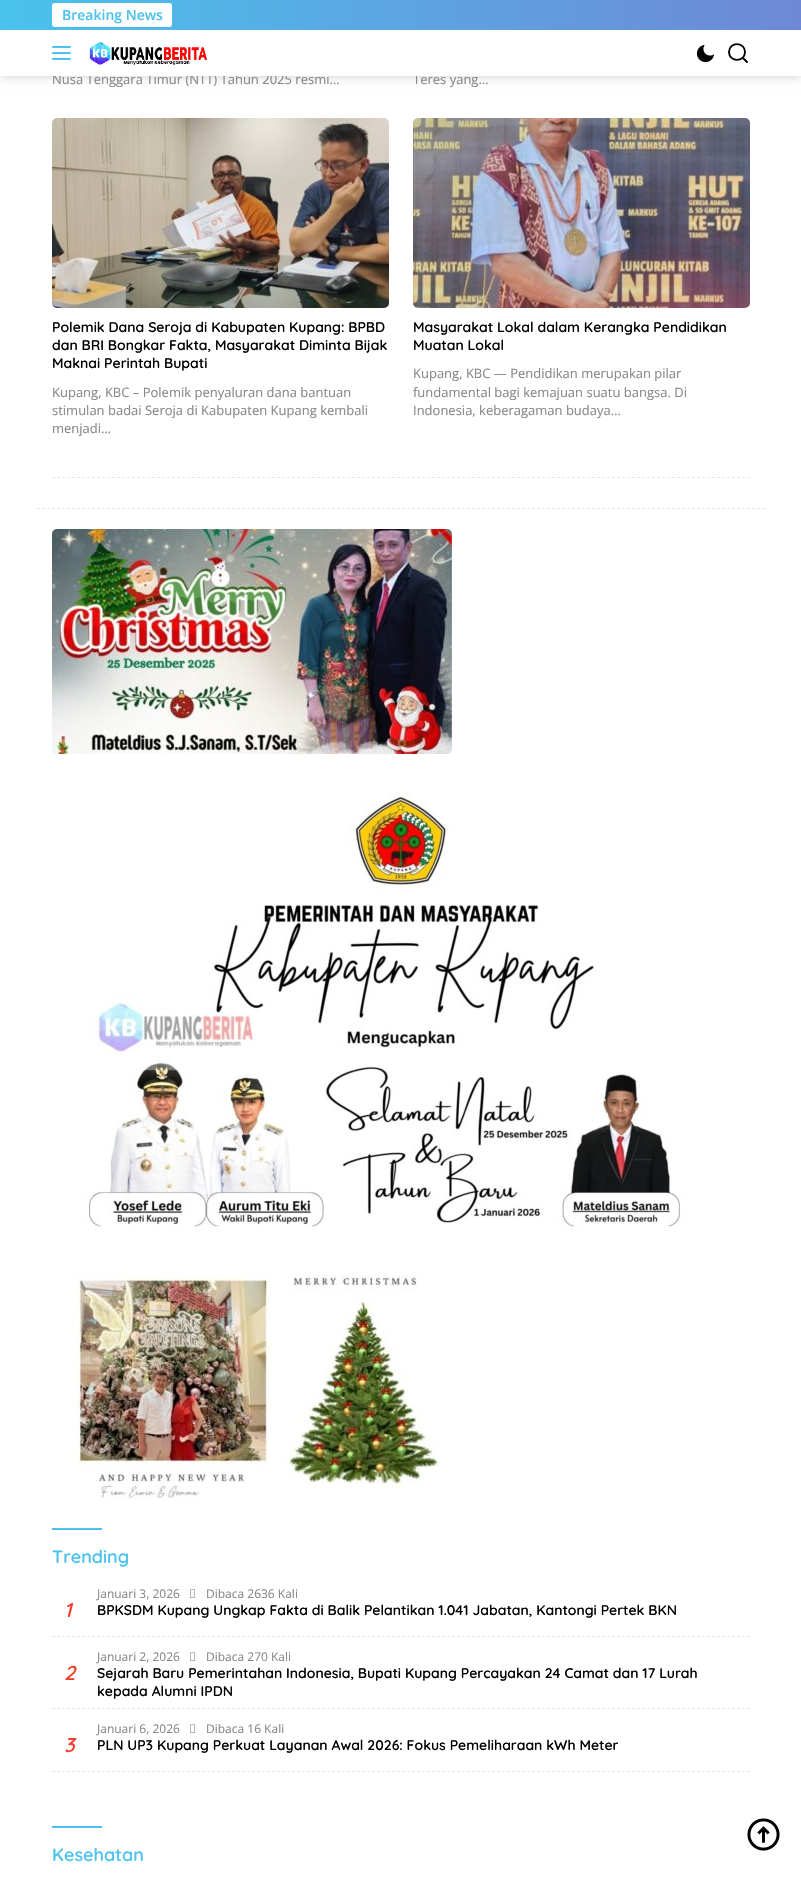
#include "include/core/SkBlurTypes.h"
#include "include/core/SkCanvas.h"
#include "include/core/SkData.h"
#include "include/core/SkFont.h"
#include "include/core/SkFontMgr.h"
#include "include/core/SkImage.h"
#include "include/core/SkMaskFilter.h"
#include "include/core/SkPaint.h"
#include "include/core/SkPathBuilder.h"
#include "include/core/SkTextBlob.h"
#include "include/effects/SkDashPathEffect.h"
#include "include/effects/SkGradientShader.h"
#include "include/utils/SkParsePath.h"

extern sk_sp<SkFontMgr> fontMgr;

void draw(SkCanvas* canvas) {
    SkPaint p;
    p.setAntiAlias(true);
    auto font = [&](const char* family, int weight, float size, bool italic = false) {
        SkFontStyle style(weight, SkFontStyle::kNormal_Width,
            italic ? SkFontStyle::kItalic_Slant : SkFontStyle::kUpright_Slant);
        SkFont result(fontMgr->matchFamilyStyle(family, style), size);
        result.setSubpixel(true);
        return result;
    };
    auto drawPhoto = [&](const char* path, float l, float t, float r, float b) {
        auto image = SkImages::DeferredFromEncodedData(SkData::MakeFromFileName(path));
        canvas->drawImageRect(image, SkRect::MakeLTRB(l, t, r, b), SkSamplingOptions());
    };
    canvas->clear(0xFFFFFFFF);
    p.setColor(0x33000000);
    p.setMaskFilter(SkMaskFilter::MakeBlur(kNormal_SkBlurStyle, 5));
    canvas->drawRect(SkRect::MakeLTRB(0, 0, 801, 76), p);
    p.setMaskFilter(nullptr);
    auto font1 = font("Open Sans", 400, 13);
    p.setColor(0xFF888888);
    canvas->drawString("Nusa Tenggara Timur (NTT) Tahun 2025 resmi…", 52, 84, font1, p);
    canvas->drawString("Teres yang…", 413, 84, font1, p);
    p.setColor(0xFFFFFFFF);
    canvas->drawRect(SkRect::MakeLTRB(0, 30, 801, 76), p);
    {
        const SkColor colors[] = {0xFF4AC2ED, 0xFF6E88D7};
        const float stops[] = {0, 1};
        const SkPoint ends[] = {{0, 15}, {801, 15}};
        p.setShader(SkGradientShader::MakeLinear(ends, colors, stops, 2, SkTileMode::kClamp));
        p.setAlpha(255);
    }
    canvas->drawRect(SkRect::MakeLTRB(0, 0, 801, 30), p);
    p.setShader(nullptr);
    p.setColor(0xFFFFFFFF);
    canvas->drawRoundRect(SkRect::MakeLTRB(52, 3, 172, 27), 3, 3, p);
    auto font2 = font("Open Sans", 600, 14);
    p.setColor(0xFF4AC2ED);
    canvas->drawString("Breaking News", 62, 20, font2, p);
    canvas->drawRoundRect(SkRect::MakeLTRB(52, 46, 71, 48), 1, 1, p);
    canvas->drawRoundRect(SkRect::MakeLTRB(52, 52, 71, 54), 1, 1, p);
    canvas->drawRoundRect(SkRect::MakeLTRB(52, 58, 71, 60), 1, 1, p);
    drawPhoto("media/1.png", 89, 42, 207, 65);
    drawPhoto("media/2.png", 696, 44, 715, 63);
    p.setStyle(SkPaint::kStroke_Style);
    p.setStrokeWidth(1.9f);
    p.setStrokeCap(SkPaint::kRound_Cap);
    p.setColor(0xFF000000);
    canvas->drawPath(SkPathBuilder().moveTo(747, 62).lineTo(743, 58).moveTo(745, 52).cubicTo(745, 62.5f, 729, 62.5f, 729, 52).cubicTo(729, 41.5f, 745, 41.5f, 745, 52).close().detach(), p);
    p.setStrokeWidth(1);
    p.setStrokeCap(SkPaint::kButt_Cap);
    p.setColor(0xFFE6E6E6);
    p.setPathEffect(SkDashPathEffect::Make({{3, 2}}, 0));
    canvas->drawPath(SkPathBuilder().moveTo(37, 508.5f).lineTo(765, 508.5f).detach(), p);
    p.setPathEffect(nullptr);
    p.setPathEffect(SkDashPathEffect::Make({{3, 2}}, 0));
    canvas->drawPath(SkPathBuilder().moveTo(52, 477.5f).lineTo(750, 477.5f).detach(), p);
    p.setPathEffect(nullptr);
    drawPhoto("media/3.png", 52, 118, 389, 308);
    auto font3 = font("Quicksand", 600, 14);
    p.setStyle(SkPaint::kFill_Style);
    p.setColor(0xFF000000);
    {
        const struct { const char* s; float x, y; } items[] = {
            {"Polemik Dana Seroja di Kabupaten Kupang: BPBD", 52, 332},
            {"dan BRI Bongkar Fakta, Masyarakat Diminta Bijak", 52, 350},
            {"Maknai Perintah Bupati", 52, 368},
        };
        for (auto [s, x, y] : items) {
            canvas->drawString(s, x, y, font3, p);
        }
    }
    p.setColor(0xFF888888);
    {
        const struct { const char* s; float x, y; } items[] = {
            {"Kupang, KBC – Polemik penyaluran dana bantuan", 52, 397},
            {"stimulan badai Seroja di Kabupaten Kupang kembali", 52, 415},
            {"menjadi…", 52, 433},
        };
        for (auto [s, x, y] : items) {
            canvas->drawString(s, x, y, font1, p);
        }
    }
    drawPhoto("media/4.png", 413, 118, 750, 308);
    p.setColor(0xFF000000);
    canvas->drawString("Masyarakat Lokal dalam Kerangka Pendidikan", 413, 332, font3, p);
    canvas->drawString("Muatan Lokal", 413, 350, font3, p);
    p.setColor(0xFF888888);
    {
        const struct { const char* s; float x, y; } items[] = {
            {"Kupang, KBC — Pendidikan merupakan pilar", 413, 378},
            {"fundamental bagi kemajuan suatu bangsa. Di", 413, 397},
            {"Indonesia, keberagaman budaya…", 413, 415},
        };
        for (auto [s, x, y] : items) {
            canvas->drawString(s, x, y, font1, p);
        }
    }
    drawPhoto("media/5.png", 52, 529, 452, 754);
    drawPhoto("media/6.png", 85, 793, 683, 1231);
    drawPhoto("media/7.png", 69, 1275, 444, 1499);
    p.setColor(0xFF4AC2ED);
    canvas->drawRect(SkRect::MakeLTRB(52, 1528, 102, 1530), p);
    auto font4 = font("Quicksand", 600, 18);
    canvas->drawString("Trending", 52, 1563, font4, p);
    p.setStyle(SkPaint::kStroke_Style);
    p.setColor(0xFFE6E6E6);
    p.setPathEffect(SkDashPathEffect::Make({{3, 2}}, 0));
    canvas->drawPath(SkPathBuilder().moveTo(52, 1636.5f).lineTo(750, 1636.5f).detach(), p);
    p.setPathEffect(nullptr);
    auto font5 = font("Quicksand", 600, 20, true);
    p.setStyle(SkPaint::kFill_Style);
    p.setColor(0xFFF63F2D);
    canvas->drawString("1", 64, 1617, font5, p);
    auto font6 = font("Open Sans", 400, 12);
    p.setColor(0xFF888888);
    canvas->drawString("Januari 3, 2026", 97, 1598, font6, p);
    drawPhoto("media/8.png", 190, 1589, 196, 1598);
    canvas->drawString("Dibaca 2636 Kali", 206, 1598, font6, p);
    p.setColor(0xFF000000);
    canvas->drawString("BPKSDM Kupang Ungkap Fakta di Balik Pelantikan 1.041 Jabatan, Kantongi Pertek BKN", 97, 1615, font3, p);
    p.setStyle(SkPaint::kStroke_Style);
    p.setColor(0xFFE6E6E6);
    p.setPathEffect(SkDashPathEffect::Make({{3, 2}}, 0));
    canvas->drawPath(SkPathBuilder().moveTo(52, 1708.5f).lineTo(750, 1708.5f).detach(), p);
    p.setPathEffect(nullptr);
    p.setStyle(SkPaint::kFill_Style);
    p.setColor(0xFFF63F2D);
    canvas->drawString("2", 64, 1680, font5, p);
    p.setColor(0xFF888888);
    canvas->drawString("Januari 2, 2026", 97, 1661, font6, p);
    drawPhoto("media/8.png", 190, 1652, 196, 1661);
    canvas->drawString("Dibaca 270 Kali", 206, 1661, font6, p);
    p.setColor(0xFF000000);
    canvas->drawString("Sejarah Baru Pemerintahan Indonesia, Bupati Kupang Percayakan 24 Camat dan 17 Lurah", 97, 1678, font3, p);
    canvas->drawString("kepada Alumni IPDN", 97, 1696, font3, p);
    p.setStyle(SkPaint::kStroke_Style);
    p.setColor(0xFFE6E6E6);
    p.setPathEffect(SkDashPathEffect::Make({{3, 2}}, 0));
    canvas->drawPath(SkPathBuilder().moveTo(52, 1771.5f).lineTo(750, 1771.5f).detach(), p);
    p.setPathEffect(nullptr);
    p.setStyle(SkPaint::kFill_Style);
    p.setColor(0xFFF63F2D);
    canvas->drawString("3", 64, 1752, font5, p);
    p.setColor(0xFF888888);
    canvas->drawString("Januari 6, 2026", 97, 1733, font6, p);
    drawPhoto("media/8.png", 190, 1724, 196, 1733);
    canvas->drawString("Dibaca 16 Kali", 206, 1733, font6, p);
    p.setColor(0xFF000000);
    canvas->drawString("PLN UP3 Kupang Perkuat Layanan Awal 2026: Fokus Pemeliharaan kWh Meter", 97, 1750, font3, p);
    p.setColor(0xFF4AC2ED);
    canvas->drawRect(SkRect::MakeLTRB(52, 1826, 102, 1828), p);
    canvas->drawString("Kesehatan", 52, 1861, font4, p);
    drawPhoto("media/9.png", 747, 1818, 780, 1851);
}
